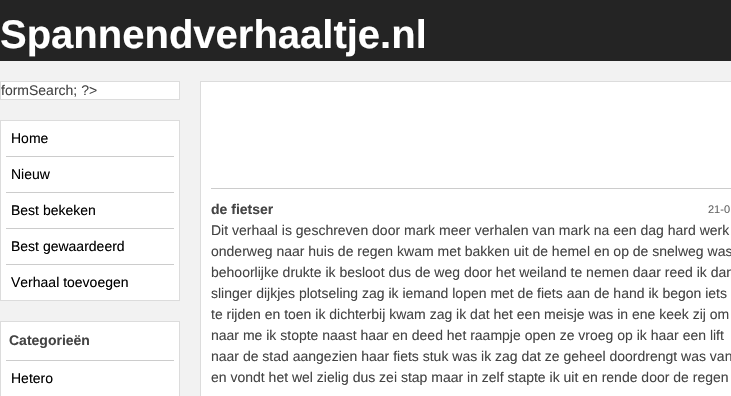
#include "include/core/SkBlurTypes.h"
#include "include/core/SkCanvas.h"
#include "include/core/SkData.h"
#include "include/core/SkFont.h"
#include "include/core/SkFontMgr.h"
#include "include/core/SkImage.h"
#include "include/core/SkMaskFilter.h"
#include "include/core/SkPaint.h"
#include "include/core/SkPathBuilder.h"
#include "include/core/SkTextBlob.h"
#include "include/effects/SkDashPathEffect.h"
#include "include/effects/SkGradientShader.h"
#include "include/utils/SkParsePath.h"

extern sk_sp<SkFontMgr> fontMgr;

void draw(SkCanvas* canvas) {
    SkPaint p;
    p.setAntiAlias(true);
    auto font = [&](const char* family, int weight, float size, bool italic = false) {
        SkFontStyle style(weight, SkFontStyle::kNormal_Width,
            italic ? SkFontStyle::kItalic_Slant : SkFontStyle::kUpright_Slant);
        SkFont result(fontMgr->matchFamilyStyle(family, style), size);
        result.setSubpixel(true);
        return result;
    };
    canvas->clear(0xFFF2F2F2);
    p.setColor(0xFF242424);
    canvas->drawRect(SkRect::MakeLTRB(0, 0, 731, 61), p);
    auto font1 = font("Liberation Sans", 700, 40);
    p.setColor(0xFFFFFFFF);
    canvas->drawString("Spannendverhaaltje.nl", 0, 48, font1, p);
    canvas->drawRect(SkRect::MakeLTRB(0.5f, 81.5f, 179.5f, 99.5f), p);
    p.setStyle(SkPaint::kStroke_Style);
    p.setStrokeWidth(1);
    p.setColor(0xFFDCDCDC);
    canvas->drawRect(SkRect::MakeLTRB(0.5f, 81.5f, 179.5f, 99.5f), p);
    auto font2 = font("Liberation Sans", 400, 14);
    p.setStyle(SkPaint::kFill_Style);
    p.setColor(0xFF444444);
    canvas->drawString("formSearch; ?>", 1, 95, font2, p);
    p.setColor(0xFFFFFFFF);
    canvas->drawRect(SkRect::MakeLTRB(0.5f, 120.5f, 179.5f, 300.5f), p);
    p.setStyle(SkPaint::kStroke_Style);
    p.setColor(0xFFDCDCDC);
    canvas->drawRect(SkRect::MakeLTRB(0.5f, 120.5f, 179.5f, 300.5f), p);
    p.setStyle(SkPaint::kFill_Style);
    p.setColor(0xFF000000);
    canvas->drawString("Home", 11, 143, font2, p);
    p.setColor(0xFFCCCCCC);
    canvas->drawRect(SkRect::MakeLTRB(6, 156, 174, 157), p);
    p.setColor(0xFF000000);
    canvas->drawString("Nieuw", 11, 179, font2, p);
    p.setColor(0xFFCCCCCC);
    canvas->drawRect(SkRect::MakeLTRB(6, 192, 174, 193), p);
    p.setColor(0xFF000000);
    canvas->drawString("Best bekeken", 11, 215, font2, p);
    p.setColor(0xFFCCCCCC);
    canvas->drawRect(SkRect::MakeLTRB(6, 228, 174, 229), p);
    p.setColor(0xFF000000);
    canvas->drawString("Best gewaardeerd", 11, 251, font2, p);
    p.setColor(0xFFCCCCCC);
    canvas->drawRect(SkRect::MakeLTRB(6, 264, 174, 265), p);
    p.setColor(0xFF000000);
    canvas->drawString("Verhaal toevoegen", 11, 287, font2, p);
    p.setColor(0xFFFFFFFF);
    canvas->drawRect(SkRect::MakeLTRB(0.5f, 321.5f, 179.5f, 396.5f), p);
    p.setStyle(SkPaint::kStroke_Style);
    p.setColor(0xFFDCDCDC);
    canvas->drawRect(SkRect::MakeLTRB(0.5f, 321.5f, 179.5f, 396.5f), p);
    auto font3 = font("Liberation Sans", 700, 14);
    p.setStyle(SkPaint::kFill_Style);
    p.setColor(0xFF444444);
    canvas->drawString("Categorieën", 9, 345, font3, p);
    p.setColor(0xFFCCCCCC);
    canvas->drawRect(SkRect::MakeLTRB(6, 360, 174, 361), p);
    p.setColor(0xFF000000);
    canvas->drawString("Hetero", 11, 383, font2, p);
    p.setColor(0xFFFFFFFF);
    canvas->drawRect(SkRect::MakeLTRB(200.5f, 81.5f, 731.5f, 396.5f), p);
    p.setStyle(SkPaint::kStroke_Style);
    p.setColor(0xFFDCDCDC);
    canvas->drawRect(SkRect::MakeLTRB(200.5f, 81.5f, 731.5f, 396.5f), p);
    p.setStyle(SkPaint::kFill_Style);
    p.setColor(0xFFCCCCCC);
    canvas->drawRect(SkRect::MakeLTRB(211, 188, 731, 189), p);
    p.setColor(0xFF444444);
    canvas->drawString("de fietser", 211, 214, font3, p);
    auto font4 = font("Liberation Sans", 400, 11);
    p.setColor(0xFF666666);
    canvas->drawString("21-0", 708, 213, font4, p);
    p.setColor(0xFF444444);
    {
        const struct { const char* s; float x, y; } items[] = {
            {"Dit verhaal is geschreven door mark meer verhalen van mark na een dag hard werk", 211, 235},
            {"onderweg naar huis de regen kwam met bakken uit de hemel en op de snelweg was", 211, 256},
            {"behoorlijke drukte ik besloot dus de weg door het weiland te nemen daar reed ik dan", 211, 277},
            {"slinger dijkjes plotseling zag ik iemand lopen met de fiets aan de hand ik begon iets", 211, 298},
            {"te rijden en toen ik dichterbij kwam zag ik dat het een meisje was in ene keek zij om", 211, 319},
            {"naar me ik stopte naast haar en deed het raampje open ze vroeg op ik haar een lift", 211, 340},
            {"naar de stad aangezien haar fiets stuk was ik zag dat ze geheel doordrengt was van", 211, 361},
            {"en vondt het wel zielig dus zei stap maar in zelf stapte ik uit en rende door de regen", 211, 382},
        };
        for (auto [s, x, y] : items) {
            canvas->drawString(s, x, y, font2, p);
        }
    }
}
